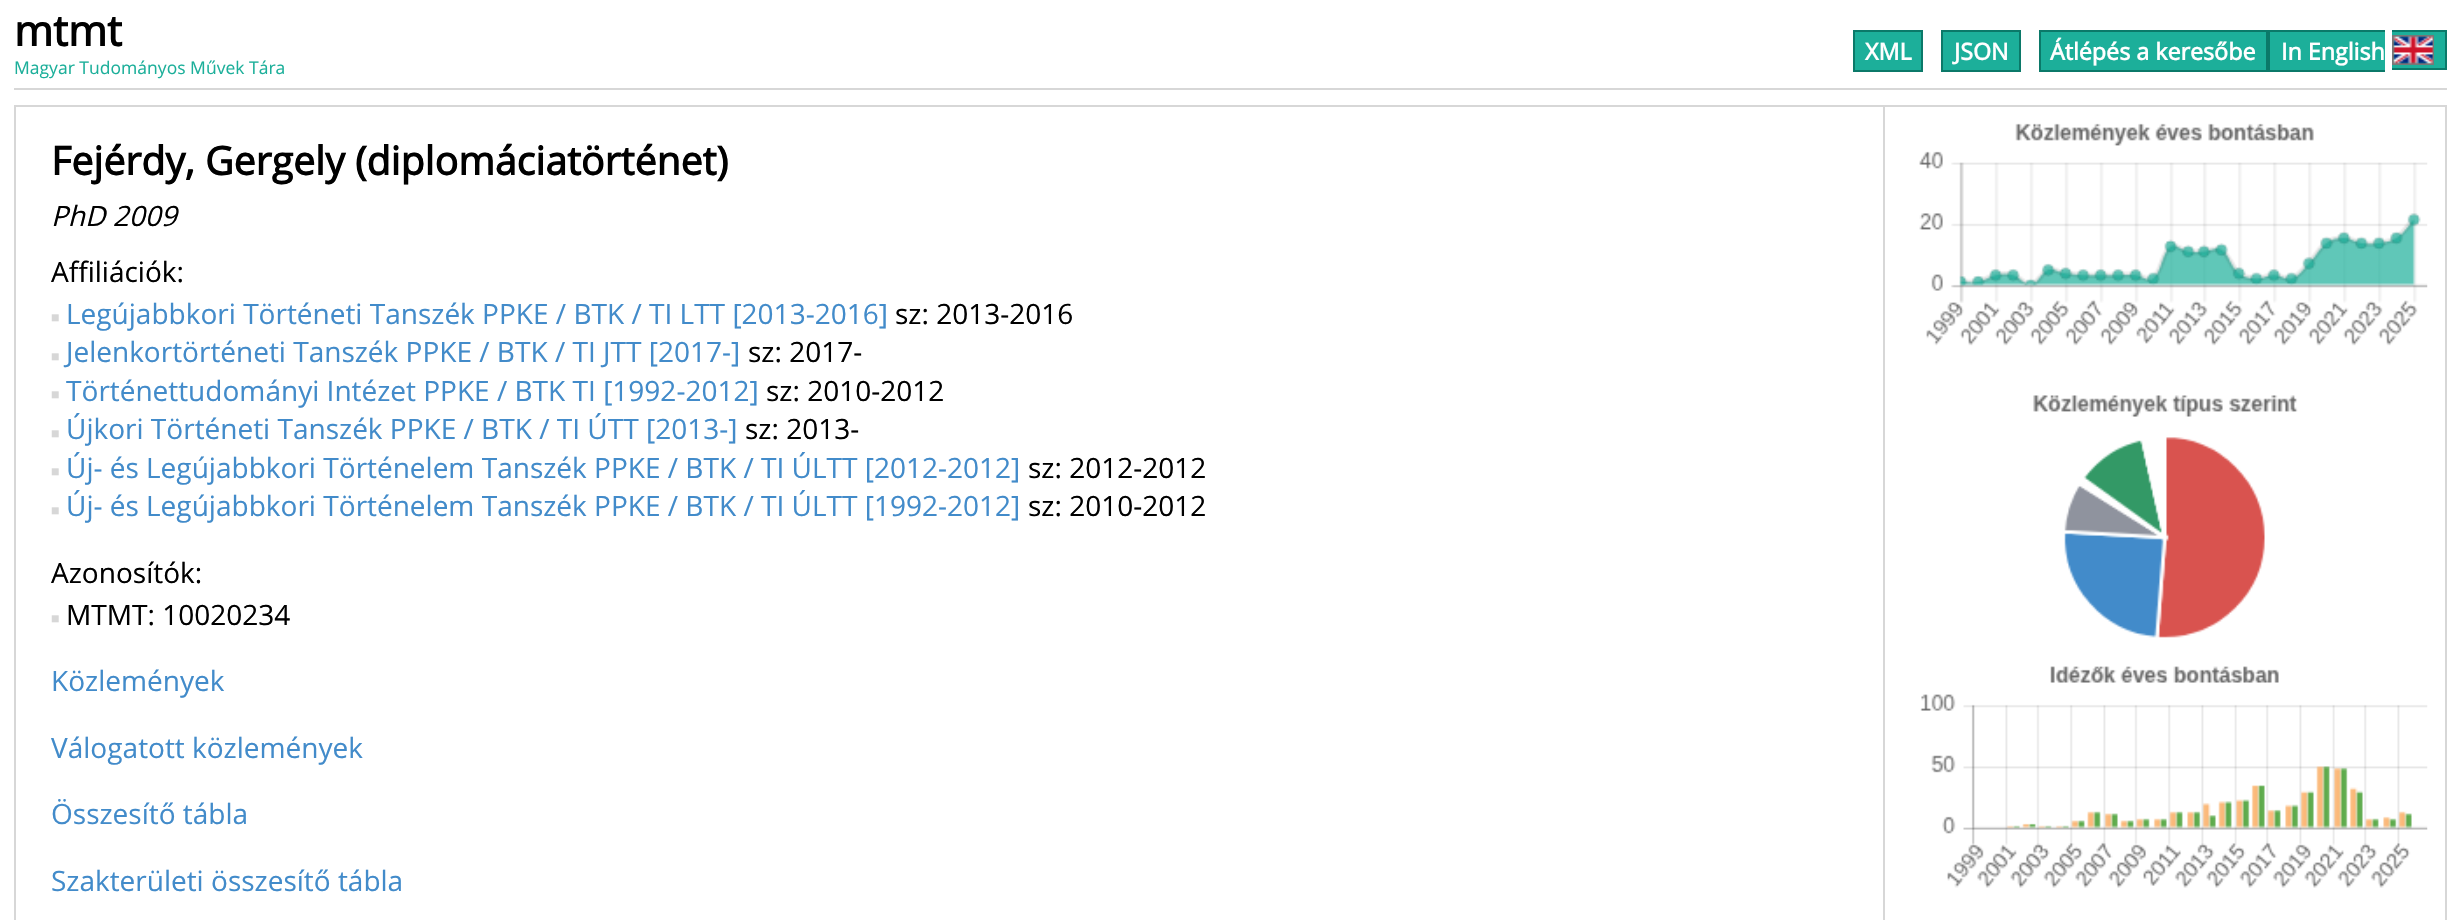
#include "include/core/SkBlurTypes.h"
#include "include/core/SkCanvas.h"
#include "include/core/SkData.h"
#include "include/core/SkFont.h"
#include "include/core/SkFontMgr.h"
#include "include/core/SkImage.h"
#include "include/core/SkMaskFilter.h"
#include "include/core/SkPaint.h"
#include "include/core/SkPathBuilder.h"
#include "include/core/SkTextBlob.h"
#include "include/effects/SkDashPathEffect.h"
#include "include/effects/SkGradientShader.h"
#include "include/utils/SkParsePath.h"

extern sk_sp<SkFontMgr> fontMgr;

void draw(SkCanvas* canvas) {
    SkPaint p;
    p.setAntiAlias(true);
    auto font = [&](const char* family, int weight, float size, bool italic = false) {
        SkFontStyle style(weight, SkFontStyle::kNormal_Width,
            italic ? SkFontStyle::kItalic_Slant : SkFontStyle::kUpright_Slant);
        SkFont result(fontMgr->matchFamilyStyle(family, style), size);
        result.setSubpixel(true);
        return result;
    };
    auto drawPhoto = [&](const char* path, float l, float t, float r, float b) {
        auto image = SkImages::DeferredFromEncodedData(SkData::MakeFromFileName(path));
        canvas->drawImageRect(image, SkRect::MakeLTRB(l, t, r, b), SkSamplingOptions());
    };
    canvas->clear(0xFFFFFFFF);
    p.setColor(0xFFD7D7D7);
    canvas->drawRect(SkRect::MakeLTRB(14, 88, 2447, 90), p);
    auto font1 = font("Open Sans", 700, 42);
    p.setColor(0xFF000000);
    canvas->drawString("mtmt", 14, 46, font1, p);
    auto font2 = font("Open Sans", 400, 17.5f);
    p.setColor(0xFF1CAF9A);
    canvas->drawString("Magyar Tudományos Művek Tára", 14, 74, font2, p);
    canvas->drawRect(SkRect::MakeLTRB(1854, 31, 1922, 71), p);
    p.setStyle(SkPaint::kStroke_Style);
    p.setStrokeWidth(2);
    p.setColor(0xFF0B7969);
    canvas->drawRect(SkRect::MakeLTRB(1854, 31, 1922, 71), p);
    auto font3 = font("Open Sans", 700, 23.25f);
    p.setStyle(SkPaint::kFill_Style);
    p.setColor(0xFFFFFFFF);
    canvas->drawString("XML", 1865, 60, font3, p);
    p.setColor(0xFF1CAF9A);
    canvas->drawRect(SkRect::MakeLTRB(1942, 31, 2020, 71), p);
    p.setStyle(SkPaint::kStroke_Style);
    p.setColor(0xFF0B7969);
    canvas->drawRect(SkRect::MakeLTRB(1942, 31, 2020, 71), p);
    p.setStyle(SkPaint::kFill_Style);
    p.setColor(0xFFFFFFFF);
    canvas->drawString("JSON", 1954, 60, font3, p);
    p.setColor(0xFF1CAF9A);
    canvas->drawRect(SkRect::MakeLTRB(2040, 31, 2267, 71), p);
    p.setStyle(SkPaint::kStroke_Style);
    p.setColor(0xFF0B7969);
    canvas->drawRect(SkRect::MakeLTRB(2040, 31, 2267, 71), p);
    p.setStyle(SkPaint::kFill_Style);
    p.setColor(0xFFFFFFFF);
    canvas->drawString("Átlépés a keresőbe", 2050, 60, font3, p);
    p.setColor(0xFF1CAF9A);
    canvas->drawRect(SkRect::MakeLTRB(2270, 32, 2385, 70), p);
    p.setColor(0xFFFFFFFF);
    canvas->drawString("In English", 2281, 60, font3, p);
    {
        const struct { float l, t, r, b; SkColor color; } items[] = {
            {2268, 30, 2385, 32, 0xFF0B7969},
            {2268, 70, 2385, 72, 0xFF0B7969},
            {2268, 30, 2270, 72, 0xFF0B7969},
            {2392, 32, 2445, 68, 0xFF1CAF9A},
            {2392, 30, 2447, 32, 0xFF0B7969},
            {2445, 30, 2447, 70, 0xFF0B7969},
            {2392, 68, 2447, 70, 0xFF0B7969},
        };
        for (auto [l, t, r, b, color] : items) {
            p.setColor(color);
            canvas->drawRect(SkRect::MakeLTRB(l, t, r, b), p);
        }
    }
    p.setStyle(SkPaint::kStroke_Style);
    p.setColor(0xFF777777);
    canvas->drawRect(SkRect::MakeLTRB(2393, 36, 2433, 64), p);
    drawPhoto("media/1.png", 2393, 36, 2433, 64);
    p.setColor(0xFFD7D7D7);
    canvas->drawRect(SkRect::MakeLTRB(15, 106, 2446, 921), p);
    auto font4 = font("Open Sans", 700, 39.25f);
    p.setStyle(SkPaint::kFill_Style);
    p.setColor(0xFF000000);
    canvas->drawString("Fejérdy, Gergely (diplomáciatörténet)", 51, 175, font4, p);
    auto font5 = font("Open Sans", 400, 28, true);
    canvas->drawString("PhD 2009", 51, 226, font5, p);
    auto font6 = font("Open Sans", 400, 28);
    canvas->drawString("Affiliációk:", 51, 282, font6, p);
    auto font7 = font("Liberation Serif", 400, 14);
    p.setColor(0xFFD7D7D7);
    canvas->drawString("■", 51, 322, font7, p);
    p.setColor(0xFF428BCA);
    canvas->drawString("Legújabbkori Történeti Tanszék PPKE / BTK / TI LTT [2013-2016]", 66, 324, font6, p);
    p.setColor(0xFF000000);
    canvas->drawString("sz: 2013-2016", 895, 324, font6, p);
    p.setColor(0xFFD7D7D7);
    canvas->drawString("■", 51, 361, font7, p);
    p.setColor(0xFF428BCA);
    canvas->drawString("Jelenkortörténeti Tanszék PPKE / BTK / TI JTT [2017-]", 66, 362, font6, p);
    p.setColor(0xFF000000);
    canvas->drawString("sz: 2017-", 748, 362, font6, p);
    p.setColor(0xFFD7D7D7);
    canvas->drawString("■", 51, 399, font7, p);
    p.setColor(0xFF428BCA);
    canvas->drawString("Történettudományi Intézet PPKE / BTK TI [1992-2012]", 66, 401, font6, p);
    p.setColor(0xFF000000);
    canvas->drawString("sz: 2010-2012", 766, 401, font6, p);
    p.setColor(0xFFD7D7D7);
    canvas->drawString("■", 51, 438, font7, p);
    p.setColor(0xFF428BCA);
    canvas->drawString("Újkori Történeti Tanszék PPKE / BTK / TI ÚTT [2013-]", 66, 439, font6, p);
    p.setColor(0xFF000000);
    canvas->drawString("sz: 2013-", 745, 439, font6, p);
    p.setColor(0xFFD7D7D7);
    canvas->drawString("■", 51, 476, font7, p);
    p.setColor(0xFF428BCA);
    canvas->drawString("Új- és Legújabbkori Történelem Tanszék PPKE / BTK / TI ÚLTT [2012-2012]", 66, 478, font6, p);
    p.setColor(0xFF000000);
    canvas->drawString("sz: 2012-2012", 1028, 478, font6, p);
    p.setColor(0xFFD7D7D7);
    canvas->drawString("■", 51, 515, font7, p);
    p.setColor(0xFF428BCA);
    canvas->drawString("Új- és Legújabbkori Történelem Tanszék PPKE / BTK / TI ÚLTT [1992-2012]", 66, 516, font6, p);
    p.setColor(0xFF000000);
    canvas->drawString("sz: 2010-2012", 1028, 516, font6, p);
    canvas->drawString("Azonosítók:", 51, 583, font6, p);
    p.setColor(0xFFD7D7D7);
    canvas->drawString("■", 51, 623, font7, p);
    p.setColor(0xFF000000);
    canvas->drawString("MTMT: 10020234", 66, 625, font6, p);
    p.setColor(0xFF428BCA);
    {
        const struct { const char* s; float x, y; } items[] = {
            {"Közlemények", 51, 691},
            {"Válogatott közlemények", 51, 758},
            {"Összesítő tábla", 51, 824},
            {"Szakterületi összesítő tábla", 51, 891},
        };
        for (auto [s, x, y] : items) {
            canvas->drawString(s, x, y, font6, p);
        }
    }
    p.setColor(0xFFD7D7D7);
    canvas->drawRect(SkRect::MakeLTRB(1883, 107, 1885, 920), p);
    drawPhoto("media/2.png", 1919, 123, 2428, 346);
    drawPhoto("media/3.png", 2033, 395, 2298, 638);
    drawPhoto("media/4.png", 1920, 666, 2428, 888);
}
